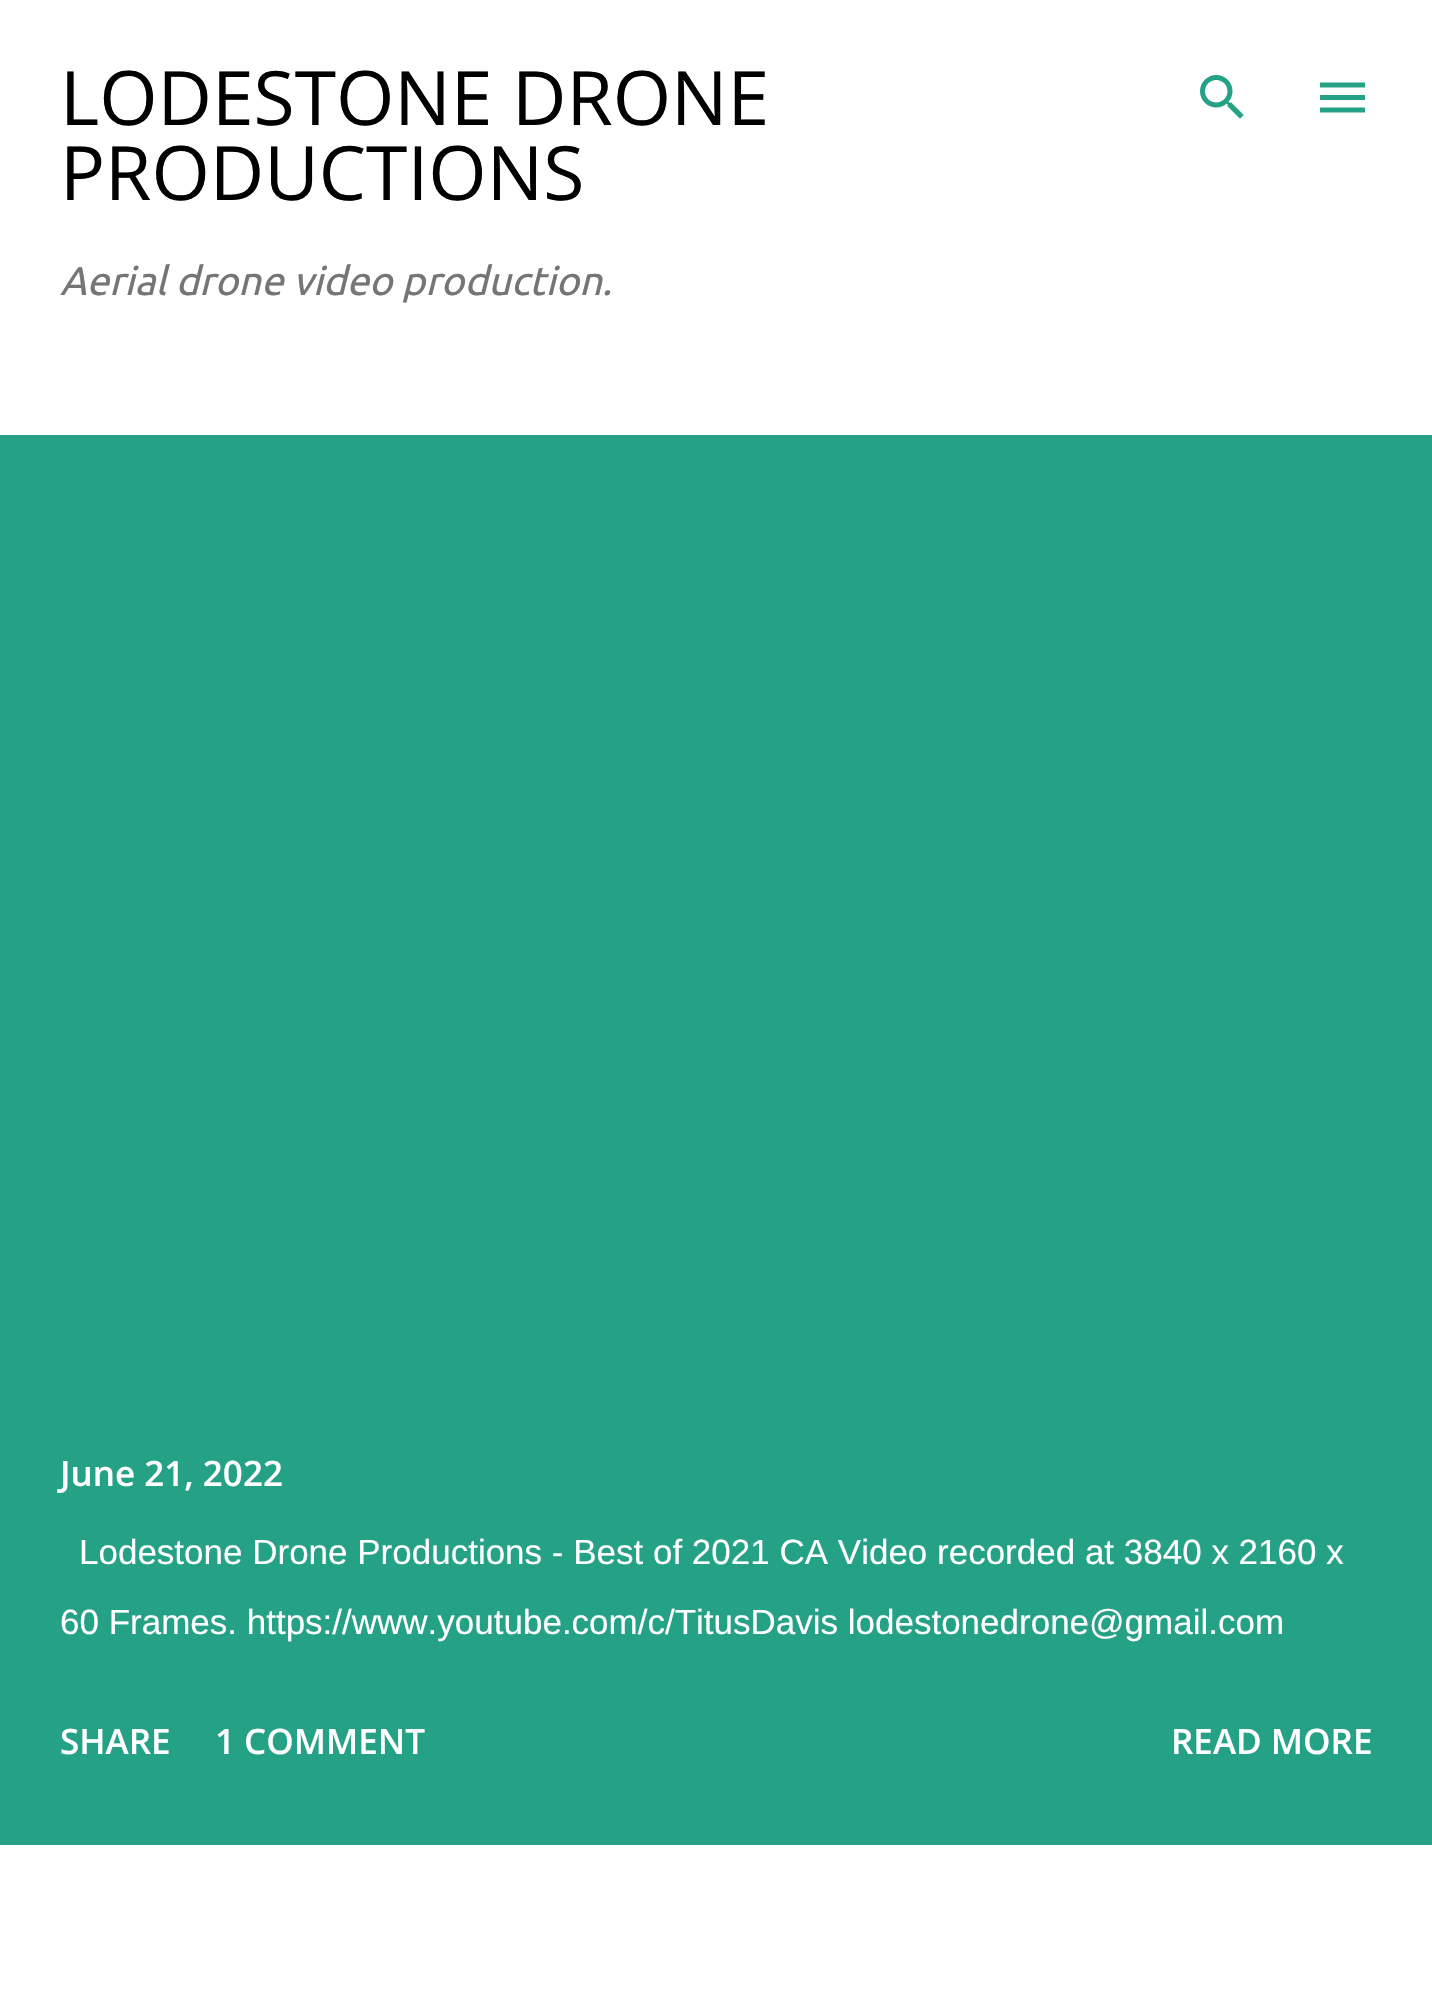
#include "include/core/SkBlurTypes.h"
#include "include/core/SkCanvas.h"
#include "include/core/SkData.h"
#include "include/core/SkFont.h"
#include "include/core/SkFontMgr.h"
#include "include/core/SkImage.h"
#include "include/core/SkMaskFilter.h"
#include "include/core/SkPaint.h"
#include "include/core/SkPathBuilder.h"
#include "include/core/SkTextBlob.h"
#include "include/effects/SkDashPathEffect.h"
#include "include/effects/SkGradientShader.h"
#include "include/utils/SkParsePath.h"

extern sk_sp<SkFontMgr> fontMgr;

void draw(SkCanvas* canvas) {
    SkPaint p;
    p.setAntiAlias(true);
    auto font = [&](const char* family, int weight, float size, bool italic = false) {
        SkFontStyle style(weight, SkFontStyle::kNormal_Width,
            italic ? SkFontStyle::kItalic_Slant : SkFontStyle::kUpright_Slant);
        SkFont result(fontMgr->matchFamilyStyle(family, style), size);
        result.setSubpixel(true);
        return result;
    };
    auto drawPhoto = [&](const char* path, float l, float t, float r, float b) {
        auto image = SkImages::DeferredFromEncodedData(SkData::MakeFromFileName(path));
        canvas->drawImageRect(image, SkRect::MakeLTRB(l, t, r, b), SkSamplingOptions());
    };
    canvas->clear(0xFFFFFFFF);
    auto font1 = font("Open Sans", 400, 75);
    p.setColor(0xFF000000);
    canvas->drawString("LODESTONE DRONE", 60, 125, font1, p);
    canvas->drawString("PRODUCTIONS", 60, 200, font1, p);
    auto font2 = font("Ubuntu", 400, 40, true);
    p.setColor(0xFF757575);
    canvas->drawString("Aerial drone video production.", 60, 295, font2, p);
    drawPhoto("media/1.png", 1200, 75, 1244, 119);
    drawPhoto("media/2.png", 1320, 82, 1365, 113);
    p.setColor(0xFF25A186);
    canvas->drawRect(SkRect::MakeLTRB(0, 435, 1432, 1845), p);
    auto font3 = font("Open Sans", 600, 35);
    p.setColor(0xFFFFFFFF);
    canvas->drawString("June 21, 2022", 60, 1486, font3, p);
    auto font4 = font("Liberation Sans", 400, 35);
    canvas->drawString("Lodestone Drone Productions - Best of 2021 CA Video recorded at 3840 x 2160 x", 79, 1564, font4, p);
    canvas->drawString("60 Frames. https://www.youtube.com/c/TitusDavis lodestonedrone@gmail.com", 60, 1634, font4, p);
    {
        const struct { const char* s; float x, y; } items[] = {
            {"SHARE", 60, 1754},
            {"1 COMMENT", 215, 1754},
            {"READ MORE", 1171, 1754},
        };
        for (auto [s, x, y] : items) {
            canvas->drawString(s, x, y, font3, p);
        }
    }
}
